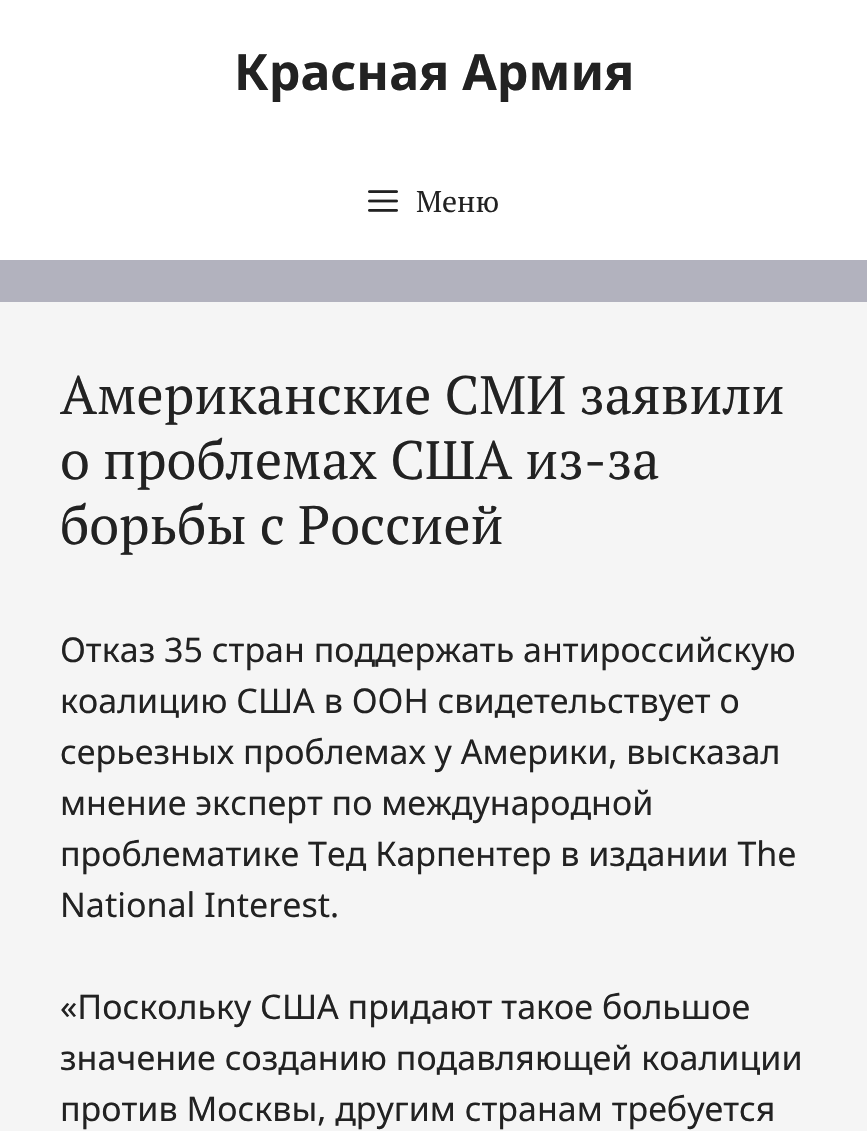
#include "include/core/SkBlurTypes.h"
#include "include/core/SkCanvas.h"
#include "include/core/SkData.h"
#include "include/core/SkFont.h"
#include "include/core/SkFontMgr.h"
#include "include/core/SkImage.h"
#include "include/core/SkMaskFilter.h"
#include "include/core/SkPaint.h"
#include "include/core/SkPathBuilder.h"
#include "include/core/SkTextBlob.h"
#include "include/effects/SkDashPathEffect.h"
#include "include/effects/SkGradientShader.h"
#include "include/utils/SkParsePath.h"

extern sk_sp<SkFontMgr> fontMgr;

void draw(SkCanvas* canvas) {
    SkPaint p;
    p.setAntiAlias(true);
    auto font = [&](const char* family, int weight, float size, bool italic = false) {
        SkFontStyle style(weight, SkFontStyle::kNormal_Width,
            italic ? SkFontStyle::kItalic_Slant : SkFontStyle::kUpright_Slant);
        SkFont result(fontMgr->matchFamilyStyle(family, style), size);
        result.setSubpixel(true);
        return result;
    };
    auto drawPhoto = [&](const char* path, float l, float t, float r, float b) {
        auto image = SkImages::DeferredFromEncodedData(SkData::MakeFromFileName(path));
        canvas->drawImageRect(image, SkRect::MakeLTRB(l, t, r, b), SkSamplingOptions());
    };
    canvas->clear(0xFFB2B2BE);
    p.setColor(0xFFFFFFFF);
    canvas->drawRect(SkRect::MakeLTRB(0, 0, 867, 260), p);
    auto font1 = font("Noto Sans", 700, 50);
    p.setColor(0xFF222222);
    canvas->drawString("Красная Армия", 234, 90, font1, p);
    drawPhoto("media/1.png", 368, 190, 398, 212);
    auto font2 = font("PT Serif", 400, 30);
    canvas->drawString("Меню", 416, 212, font2, p);
    p.setColor(0xFFF5F5F5);
    canvas->drawRect(SkRect::MakeLTRB(0, 302, 867, 1131), p);
    auto font3 = font("PT Serif", 400, 54);
    p.setColor(0xFF222222);
    {
        const struct { const char* s; float x, y; } items[] = {
            {"Американские СМИ заявили", 60, 414},
            {"о проблемах США из-за", 60, 479},
            {"борьбы с Россией", 60, 544},
        };
        for (auto [s, x, y] : items) {
            canvas->drawString(s, x, y, font3, p);
        }
    }
    auto font4 = font("Noto Sans", 400, 34);
    {
        const struct { const char* s; float x, y; } items[] = {
            {"Отказ 35 стран поддержать антироссийскую", 60, 662},
            {"коалицию США в ООН свидетельствует о", 60, 713},
            {"серьезных проблемах у Америки, высказал", 60, 764},
            {"мнение эксперт по международной", 60, 815},
            {"проблематике Тед Карпентер в издании The", 60, 866},
            {"National Interest.", 60, 917},
            {"«Поскольку США придают такое большое", 60, 1019},
            {"значение созданию подавляющей коалиции", 60, 1070},
            {"против Москвы, другим странам требуется", 60, 1121},
        };
        for (auto [s, x, y] : items) {
            canvas->drawString(s, x, y, font4, p);
        }
    }
}
